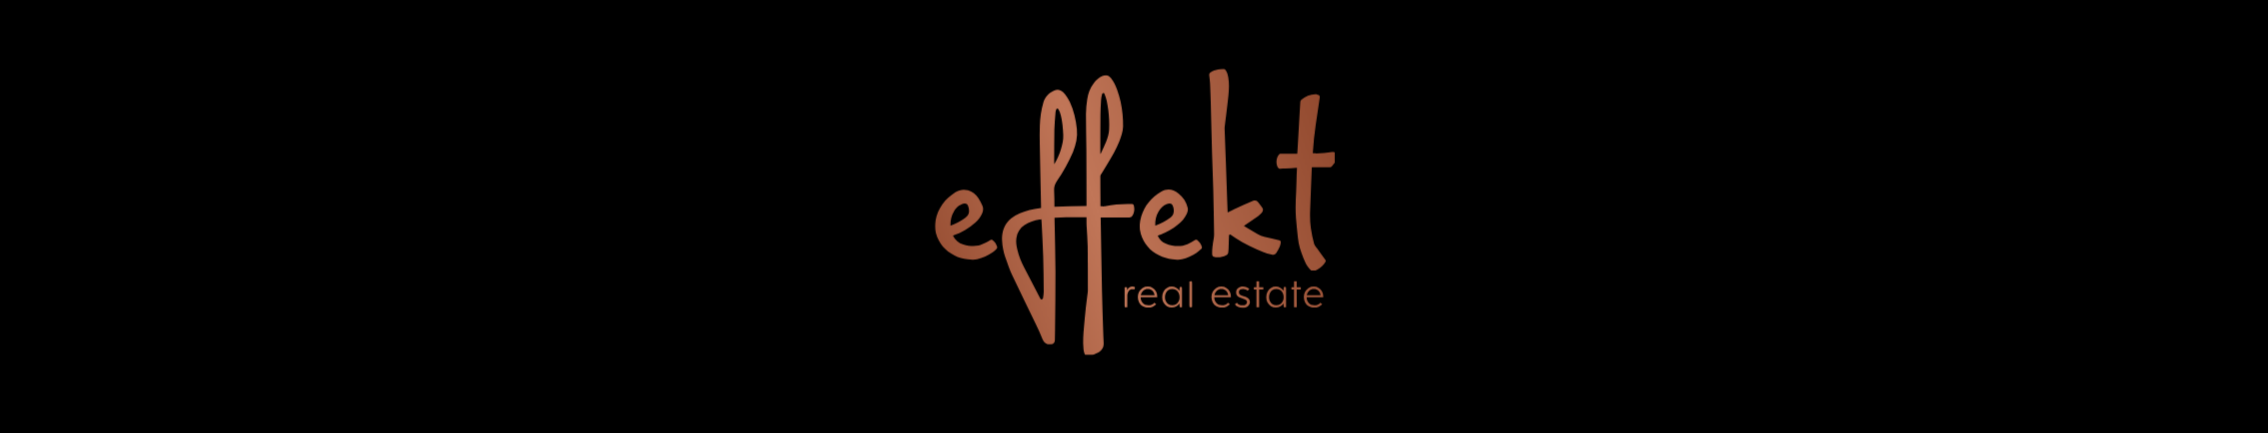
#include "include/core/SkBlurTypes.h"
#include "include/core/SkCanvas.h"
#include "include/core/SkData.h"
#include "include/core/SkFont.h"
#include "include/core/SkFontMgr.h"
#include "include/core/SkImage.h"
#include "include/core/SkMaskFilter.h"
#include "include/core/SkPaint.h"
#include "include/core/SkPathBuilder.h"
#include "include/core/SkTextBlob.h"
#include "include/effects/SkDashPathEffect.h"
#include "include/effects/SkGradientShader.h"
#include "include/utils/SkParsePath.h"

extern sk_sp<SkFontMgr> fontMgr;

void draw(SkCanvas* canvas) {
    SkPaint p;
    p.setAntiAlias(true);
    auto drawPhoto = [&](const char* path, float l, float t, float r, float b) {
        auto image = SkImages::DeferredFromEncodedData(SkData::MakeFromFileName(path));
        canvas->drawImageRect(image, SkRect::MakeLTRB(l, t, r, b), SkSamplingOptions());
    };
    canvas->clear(0xFF000000);
    drawPhoto("media/1.png", 934, 68, 1335, 356);
}
